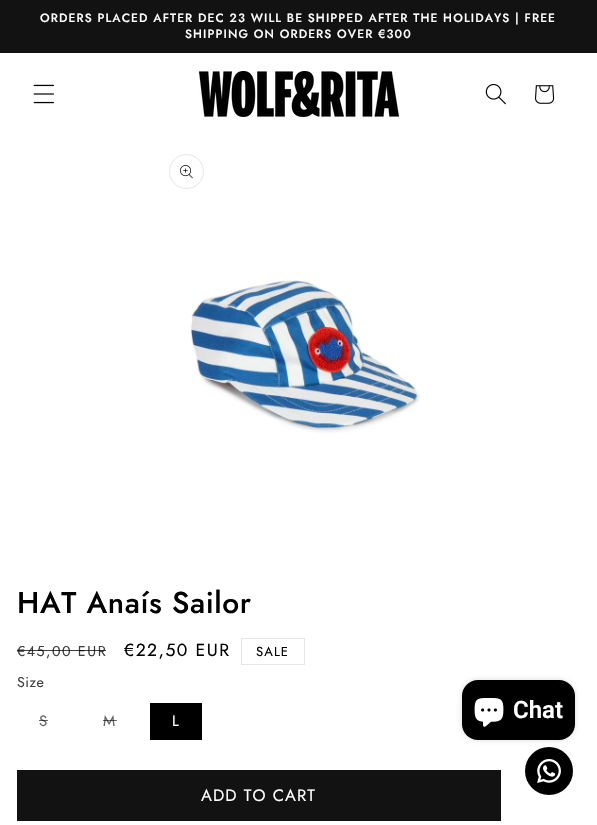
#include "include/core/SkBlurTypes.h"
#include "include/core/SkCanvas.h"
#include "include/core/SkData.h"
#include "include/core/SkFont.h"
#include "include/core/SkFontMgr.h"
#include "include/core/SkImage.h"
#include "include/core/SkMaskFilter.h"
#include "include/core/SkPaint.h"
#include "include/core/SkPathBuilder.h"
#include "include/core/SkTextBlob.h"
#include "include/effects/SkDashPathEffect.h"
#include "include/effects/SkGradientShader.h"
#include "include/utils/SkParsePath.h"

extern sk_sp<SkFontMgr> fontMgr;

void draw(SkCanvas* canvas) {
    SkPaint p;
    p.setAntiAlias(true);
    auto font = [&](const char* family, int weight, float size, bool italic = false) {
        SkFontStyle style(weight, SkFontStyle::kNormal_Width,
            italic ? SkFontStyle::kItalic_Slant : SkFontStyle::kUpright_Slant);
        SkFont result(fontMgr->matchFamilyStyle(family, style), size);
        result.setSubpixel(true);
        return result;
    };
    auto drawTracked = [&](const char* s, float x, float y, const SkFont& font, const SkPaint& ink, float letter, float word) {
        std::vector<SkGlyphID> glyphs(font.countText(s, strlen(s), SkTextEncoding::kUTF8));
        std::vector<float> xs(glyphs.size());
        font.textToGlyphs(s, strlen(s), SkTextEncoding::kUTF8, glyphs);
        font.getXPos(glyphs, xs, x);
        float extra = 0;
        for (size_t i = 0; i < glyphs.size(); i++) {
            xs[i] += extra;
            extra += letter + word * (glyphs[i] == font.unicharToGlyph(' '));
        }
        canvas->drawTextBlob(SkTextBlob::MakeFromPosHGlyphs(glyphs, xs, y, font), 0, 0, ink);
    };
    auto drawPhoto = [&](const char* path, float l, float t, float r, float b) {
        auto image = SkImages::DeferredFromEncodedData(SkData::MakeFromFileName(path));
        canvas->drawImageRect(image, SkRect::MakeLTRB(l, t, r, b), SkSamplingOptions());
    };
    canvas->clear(0xFFFFFFFF);
    p.setColor(0xFF121212);
    canvas->drawRect(SkRect::MakeLTRB(0, 0, 597, 53), p);
    auto font1 = font("Jost", 500, 12);
    p.setColor(0xFFFFFFFF);
    drawTracked("ORDERS PLACED AFTER DEC 23 WILL BE SHIPPED AFTER THE HOLIDAYS | FREE", 40, 22, font1, p, 1.1f, 0);
    drawTracked("SHIPPING ON ORDERS OVER €300", 185, 38, font1, p, 1.1f, 0);
    drawPhoto("media/1.png", 33, 84, 54, 104);
    drawPhoto("media/2.png", 199, 71, 399, 117);
    drawPhoto("media/3.png", 485, 83, 506, 105);
    drawPhoto("media/4.png", 535, 85, 555, 104);
    p.setStyle(SkPaint::kStroke_Style);
    p.setStrokeWidth(1);
    p.setColor(0xFFE6E6E6);
    canvas->drawCircle(186.5f, 171.5f, 17, p);
    drawPhoto("media/5.png", 180, 165, 193, 179);
    drawPhoto("media/6.png", 190, 280, 420, 433);
    auto font2 = font("Jost", 500, 30);
    p.setStyle(SkPaint::kFill_Style);
    p.setColor(0xFF000000);
    drawTracked("HAT Anaís Sailor", 17, 613, font2, p, 0.6f, 0);
    auto font3 = font("Jost", 400, 14.25f);
    p.setColor(0xFF404040);
    drawTracked("€45,00 EUR", 17, 656, font3, p, 1.5f, 0);
    p.setColor(0xBF000000);
    canvas->drawRect(SkRect::MakeLTRB(17, 650, 106, 651), p);
    auto font4 = font("Jost", 400, 17.5f);
    p.setColor(0xFF000000);
    drawTracked("€22,50 EUR", 124, 656, font4, p, 1.5f, 0);
    p.setStyle(SkPaint::kStroke_Style);
    p.setColor(0xFFE6E6E6);
    canvas->drawRect(SkRect::MakeLTRB(241.5f, 638.5f, 304.5f, 664.5f), p);
    auto font5 = font("Jost", 400, 13);
    p.setStyle(SkPaint::kFill_Style);
    p.setColor(0xFF000000);
    drawTracked("SALE", 256, 656, font5, p, 1.1f, 0);
    p.setColor(0xFF404040);
    drawTracked("Size", 17, 687, font3, p, 0.5f, 0);
    auto font6 = font("Jost", 400, 15);
    p.setColor(0xFF666666);
    drawTracked("S", 39, 726, font6, p, 1.1f, 0);
    p.setColor(0x99000000);
    canvas->drawRect(SkRect::MakeLTRB(39, 720, 48, 721), p);
    p.setColor(0xFF666666);
    drawTracked("M", 103, 726, font6, p, 1.1f, 0);
    p.setColor(0x99000000);
    canvas->drawRect(SkRect::MakeLTRB(103, 720, 117, 721), p);
    p.setColor(0xFF000000);
    canvas->drawRect(SkRect::MakeLTRB(150, 703, 202, 740), p);
    p.setColor(0xFFFFFFFF);
    drawTracked("L", 172, 726, font6, p, 1.1f, 0);
    p.setColor(0xFF121212);
    canvas->drawRect(SkRect::MakeLTRB(17, 770, 501, 821), p);
    auto font7 = font("Jost", 400, 16.5f);
    p.setColor(0xFFFFFFFF);
    drawTracked("ADD TO CART", 201, 801, font7, p, 1.1f, 0);
    p.setColor(0x26000000);
    p.setMaskFilter(SkMaskFilter::MakeBlur(kNormal_SkBlurStyle, 2.5f));
    canvas->drawRoundRect(SkRect::MakeLTRB(462, 680, 575, 740), 16, 16, p);
    p.setMaskFilter(nullptr);
    p.setColor(0xFF000000);
    canvas->drawRoundRect(SkRect::MakeLTRB(462, 680, 575, 740), 16, 16, p);
    drawPhoto("media/7.png", 474, 698, 504, 727);
    auto font8 = font("Roboto", 600, 24);
    p.setColor(0xFFFFFFFF);
    canvas->drawString("Chat", 513, 718, font8, p);
    p.setColor(0xFF000000);
    canvas->drawCircle(549, 771, 24, p);
    drawPhoto("media/8.png", 537, 759, 561, 783);
}
